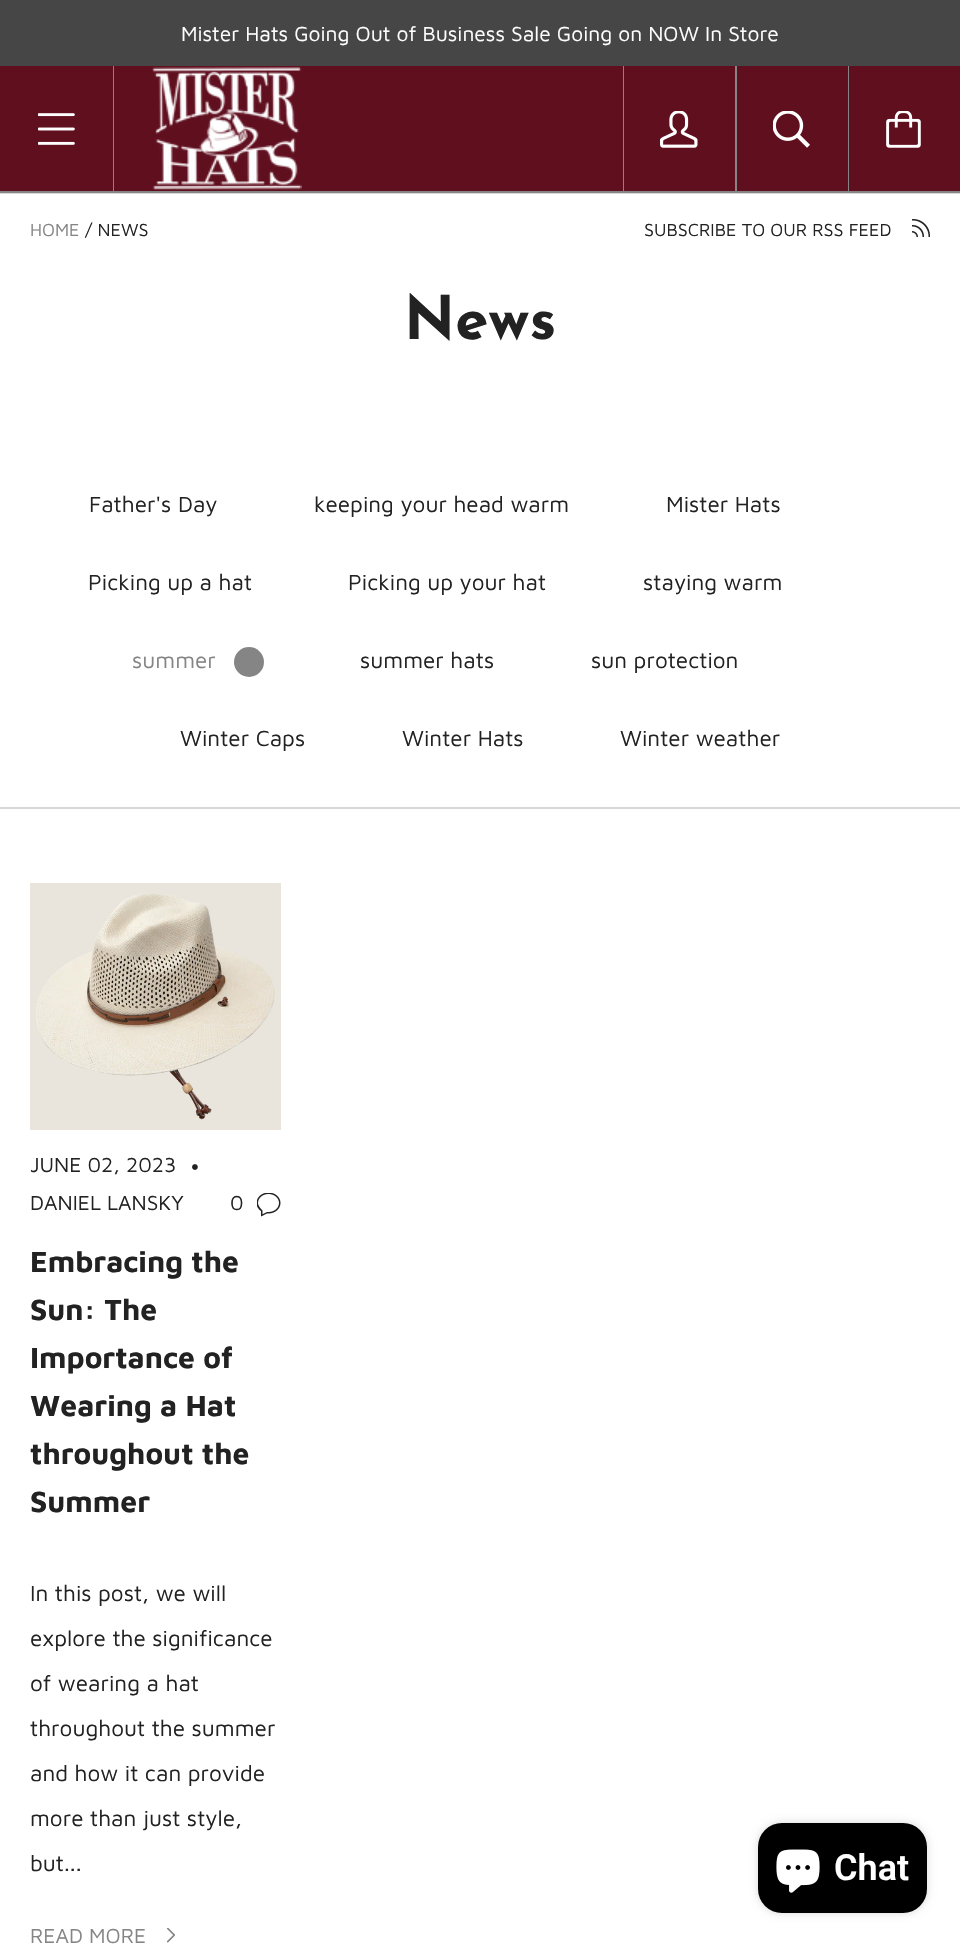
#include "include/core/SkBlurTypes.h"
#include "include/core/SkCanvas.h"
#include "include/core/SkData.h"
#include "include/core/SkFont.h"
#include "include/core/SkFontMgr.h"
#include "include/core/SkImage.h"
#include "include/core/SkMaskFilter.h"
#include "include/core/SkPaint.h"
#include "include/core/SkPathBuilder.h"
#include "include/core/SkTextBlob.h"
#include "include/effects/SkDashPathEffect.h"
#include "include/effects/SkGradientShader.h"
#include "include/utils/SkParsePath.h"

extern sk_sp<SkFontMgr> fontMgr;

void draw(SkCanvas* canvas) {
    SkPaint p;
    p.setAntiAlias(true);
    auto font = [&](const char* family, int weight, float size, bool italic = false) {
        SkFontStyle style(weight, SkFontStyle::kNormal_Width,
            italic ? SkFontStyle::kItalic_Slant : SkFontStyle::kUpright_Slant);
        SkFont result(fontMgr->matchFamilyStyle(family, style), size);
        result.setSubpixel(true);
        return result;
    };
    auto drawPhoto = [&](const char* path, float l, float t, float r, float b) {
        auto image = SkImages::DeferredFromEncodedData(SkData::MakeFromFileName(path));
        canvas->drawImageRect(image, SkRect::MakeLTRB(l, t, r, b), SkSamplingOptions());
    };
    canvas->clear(0xFFFFFFFF);
    p.setColor(0xFF464646);
    canvas->drawRect(SkRect::MakeLTRB(0, 0, 960, 66), p);
    auto font1 = font("Maven Pro", 400, 21);
    p.setColor(0xFFFFFFFF);
    canvas->drawString("Mister Hats Going Out of Business Sale Going on NOW In Store", 181, 41, font1, p);
    {
        const struct { float l, t, r, b; SkColor color; } items[] = {
            {0, 193, 960, 194, 0xFFDADADA},
            {0, 66, 848, 191, 0xFF600F1F},
            {0, 191, 960, 193, 0xFF858585},
        };
        for (auto [l, t, r, b, color] : items) {
            p.setColor(color);
            canvas->drawRect(SkRect::MakeLTRB(l, t, r, b), p);
        }
    }
    drawPhoto("media/1.png", 38, 113, 75, 145);
    canvas->drawRect(SkRect::MakeLTRB(113, 66, 114, 191), p);
    drawPhoto("media/2.png", 152, 67, 302, 190);
    canvas->drawRect(SkRect::MakeLTRB(623, 66, 624, 191), p);
    drawPhoto("media/3.png", 660, 111, 698, 148);
    canvas->drawRect(SkRect::MakeLTRB(735, 66, 737, 191), p);
    drawPhoto("media/4.png", 773, 111, 810, 148);
    canvas->drawRect(SkRect::MakeLTRB(848, 66, 849, 191), p);
    p.setColor(0xFF600F1F);
    canvas->drawRect(SkRect::MakeLTRB(849, 66, 960, 191), p);
    drawPhoto("media/5.png", 886, 111, 921, 148);
    p.setColor(0xFFD9D7D7);
    canvas->drawRect(SkRect::MakeLTRB(0, 807, 960, 809), p);
    auto font2 = font("Maven Pro", 400, 18);
    p.setColor(0xFF858585);
    canvas->drawString("HOME", 30, 236, font2, p);
    p.setColor(0xFF222222);
    canvas->drawString("/ NEWS", 85, 236, font2, p);
    canvas->drawString("SUBSCRIBE TO OUR RSS FEED", 644, 236, font2, p);
    drawPhoto("media/6.png", 912, 219, 930, 237);
    auto font3 = font("Josefin Sans", 700, 60);
    canvas->drawString("News", 404, 339, font3, p);
    auto font4 = font("Maven Pro", 400, 22.5f);
    {
        const struct { const char* s; float x, y; } items[] = {
            {"Father's Day", 89, 512},
            {"keeping your head warm", 314, 512},
            {"Mister Hats", 666, 512},
            {"Picking up a hat", 88, 590},
            {"Picking up your hat", 348, 590},
            {"staying warm", 643, 590},
        };
        for (auto [s, x, y] : items) {
            canvas->drawString(s, x, y, font4, p);
        }
    }
    p.setColor(0xFF858585);
    canvas->drawString("summer", 132, 668, font4, p);
    canvas->drawCircle(249, 662, 15, p);
    p.setColor(0xFF222222);
    {
        const struct { const char* s; float x, y; } items[] = {
            {"summer hats", 360, 668},
            {"sun protection", 591, 668},
            {"Winter Caps", 180, 746},
            {"Winter Hats", 402, 746},
            {"Winter weather", 620, 746},
        };
        for (auto [s, x, y] : items) {
            canvas->drawString(s, x, y, font4, p);
        }
    }
    p.setColor(0xFFE9E5DD);
    canvas->drawRect(SkRect::MakeLTRB(30, 883, 281, 1130), p);
    drawPhoto("media/7.png", 36, 893, 275, 1120);
    p.setColor(0xFF222222);
    canvas->drawString("JUNE 02, 2023", 30, 1172, font1, p);
    auto font5 = font("Maven Pro", 400, 24);
    canvas->drawString("•", 190, 1175, font5, p);
    canvas->drawString("DANIEL LANSKY", 30, 1210, font1, p);
    canvas->drawString("0", 230, 1210, font1, p);
    drawPhoto("media/8.png", 257, 1193, 281, 1217);
    auto font6 = font("Maven Pro", 700, 30);
    {
        const struct { const char* s; float x, y; } items[] = {
            {"Embracing the", 30, 1272},
            {"Sun: The", 30, 1320},
            {"Importance of", 30, 1368},
            {"Wearing a Hat", 30, 1416},
            {"throughout the", 30, 1464},
            {"Summer", 30, 1512},
        };
        for (auto [s, x, y] : items) {
            canvas->drawString(s, x, y, font6, p);
        }
    }
    {
        const struct { const char* s; float x, y; } items[] = {
            {"In this post, we will", 30, 1601},
            {"explore the significance", 30, 1646},
            {"of wearing a hat", 30, 1691},
            {"throughout the summer", 30, 1736},
            {"and how it can provide", 30, 1781},
            {"more than just style,", 30, 1826},
            {"but...", 30, 1871},
        };
        for (auto [s, x, y] : items) {
            canvas->drawString(s, x, y, font4, p);
        }
    }
    p.setColor(0xFF858585);
    canvas->drawString("READ MORE", 30, 1943, font1, p);
    drawPhoto("media/9.png", 166, 1928, 175, 1943);
    p.setColor(0x26000000);
    p.setMaskFilter(SkMaskFilter::MakeBlur(kNormal_SkBlurStyle, 4));
    canvas->drawRoundRect(SkRect::MakeLTRB(758, 1823, 927, 1913), 24, 24, p);
    p.setMaskFilter(nullptr);
    p.setColor(0xFF000000);
    canvas->drawRoundRect(SkRect::MakeLTRB(758, 1823, 927, 1913), 24, 24, p);
    drawPhoto("media/10.png", 776, 1849, 820, 1893);
    auto font7 = font("Roboto", 600, 36);
    p.setColor(0xFFFFFFFF);
    canvas->drawString("Chat", 834, 1880, font7, p);
}
